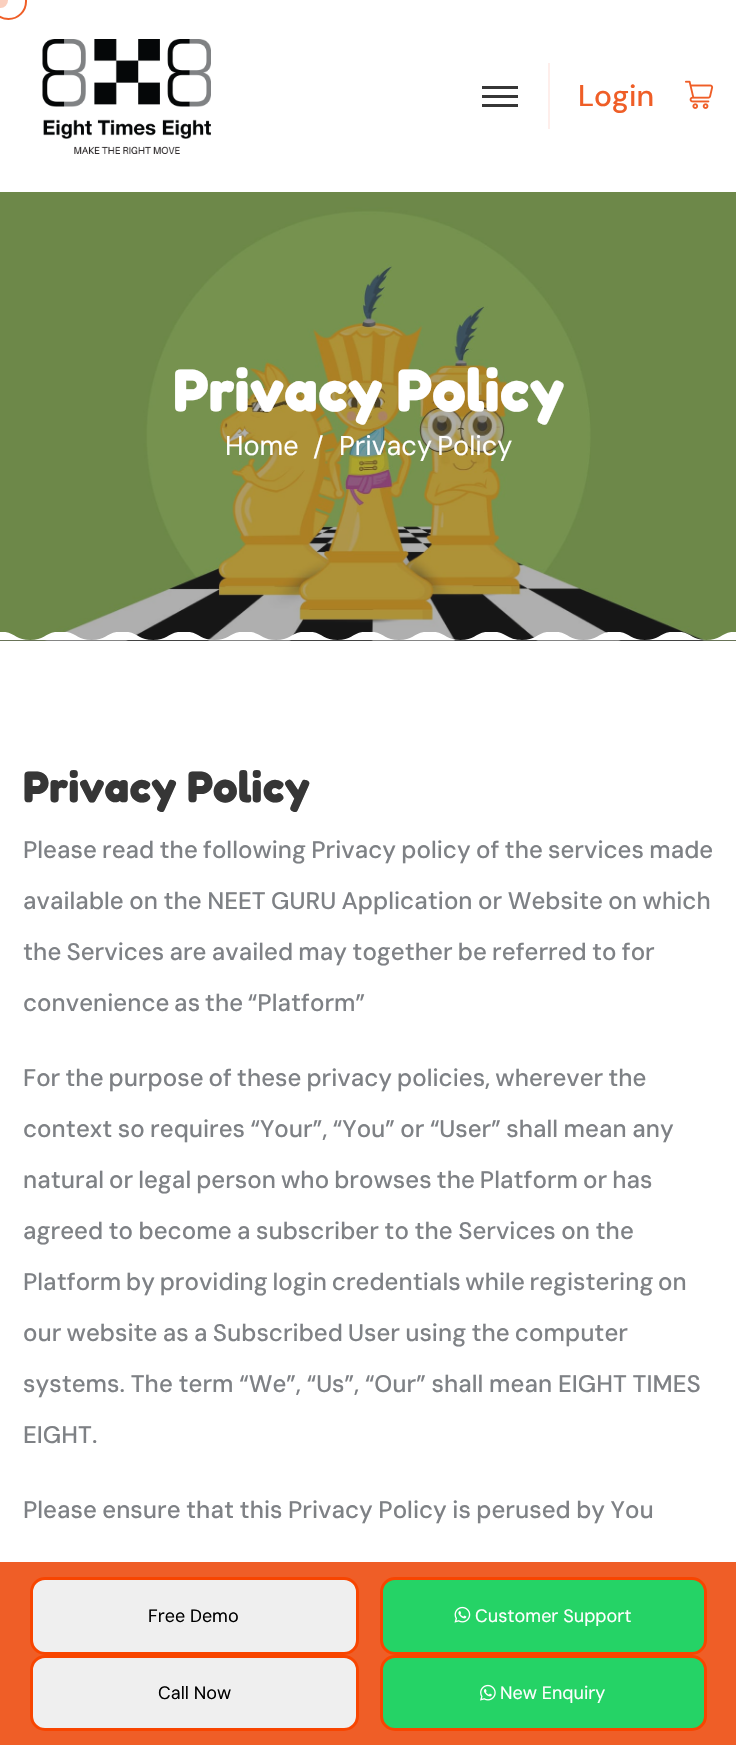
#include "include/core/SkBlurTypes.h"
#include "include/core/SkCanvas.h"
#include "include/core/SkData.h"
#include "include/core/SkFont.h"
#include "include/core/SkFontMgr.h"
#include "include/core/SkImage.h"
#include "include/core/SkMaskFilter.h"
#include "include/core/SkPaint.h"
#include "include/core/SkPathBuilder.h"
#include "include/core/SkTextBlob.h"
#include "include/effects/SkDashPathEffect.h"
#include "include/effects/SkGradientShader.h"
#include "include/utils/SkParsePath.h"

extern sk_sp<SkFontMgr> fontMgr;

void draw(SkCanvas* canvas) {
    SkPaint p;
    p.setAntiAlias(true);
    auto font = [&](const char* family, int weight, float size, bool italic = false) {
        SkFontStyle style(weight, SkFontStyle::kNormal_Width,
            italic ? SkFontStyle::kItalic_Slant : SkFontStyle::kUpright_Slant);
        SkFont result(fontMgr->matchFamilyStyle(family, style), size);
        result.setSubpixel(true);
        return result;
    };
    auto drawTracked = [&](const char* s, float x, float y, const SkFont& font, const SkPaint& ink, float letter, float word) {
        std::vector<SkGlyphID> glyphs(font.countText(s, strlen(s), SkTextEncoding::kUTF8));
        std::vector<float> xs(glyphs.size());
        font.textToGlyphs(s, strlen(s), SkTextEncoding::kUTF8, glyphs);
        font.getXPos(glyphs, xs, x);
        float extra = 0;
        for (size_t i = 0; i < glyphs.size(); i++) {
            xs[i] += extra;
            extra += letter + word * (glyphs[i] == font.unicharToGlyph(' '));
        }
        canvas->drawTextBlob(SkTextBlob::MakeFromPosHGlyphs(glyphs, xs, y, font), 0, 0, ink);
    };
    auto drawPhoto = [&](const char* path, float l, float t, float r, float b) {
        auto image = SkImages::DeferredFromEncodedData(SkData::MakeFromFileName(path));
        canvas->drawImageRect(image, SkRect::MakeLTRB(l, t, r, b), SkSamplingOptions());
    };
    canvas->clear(0xFFFFFFFF);
    p.setStyle(SkPaint::kStroke_Style);
    p.setStrokeWidth(2);
    p.setColor(0xFFEF5E27);
    canvas->drawRoundRect(SkRect::MakeLTRB(-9, -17, 26, 19), 17.5f, 17.5f, p);
    p.setStyle(SkPaint::kFill_Style);
    p.setColor(0xFFFACFBE);
    canvas->drawCircle(0.5f, 0.5f, 7.5f, p);
    drawPhoto("media/1.png", 42, 39, 211, 154);
    {
        const struct { float l, t, r, b; SkColor color; } items[] = {
            {482, 86, 518, 89, 0xFF363636},
            {482, 95, 518, 98, 0xFF363636},
            {482, 104, 518, 107, 0xFF363636},
            {548, 63, 550, 129, 0xFFFEEEEB},
        };
        for (auto [l, t, r, b, color] : items) {
            p.setColor(color);
            canvas->drawRect(SkRect::MakeLTRB(l, t, r, b), p);
        }
    }
    auto font1 = font("DM Sans", 500, 30);
    p.setColor(0xFFEF5E27);
    canvas->drawString("Login", 578, 106, font1, p);
    drawPhoto("media/2.png", 685, 80, 714, 109);
    p.setColor(0xFF363636);
    canvas->drawRect(SkRect::MakeLTRB(0, 640, 736, 641), p);
    drawPhoto("media/3.png", 0, 192, 736, 641);
    drawPhoto("media/4.png", 0, 632, 736, 641);
    auto font2 = font("Fredoka", 300, 60);
    p.setColor(0xFFFFFFFF);
    canvas->drawString("Privacy Policy", 173, 411, font2, p);
    auto font3 = font("DM Sans", 400, 27);
    canvas->drawString("Home", 225, 455, font3, p);
    canvas->drawString("/", 313, 456, font3, p);
    drawTracked("Privacy Policy", 339, 455, font3, p, 0, -2);
    auto font4 = font("Fredoka", 300, 44);
    p.setColor(0xFF363636);
    canvas->drawString("Privacy Policy", 23, 802, font4, p);
    auto font5 = font("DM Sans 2", 500, 24);
    p.setColor(0xFF7E8185);
    drawTracked("Please read the following Privacy policy of the services made", 23, 858, font5, p, 0, -1);
    drawTracked("available on the NEET GURU Application or Website on which", 23, 909, font5, p, 0, -0.75f);
    drawTracked("the Services are availed may together be referred to for", 23, 960, font5, p, 0, -1);
    drawTracked("convenience as the “Platform”", 23, 1011, font5, p, 0, -1.5f);
    drawTracked("For the purpose of these privacy policies, wherever the", 23, 1086, font5, p, 0, -1.25f);
    drawTracked("context so requires “Your”, “You” or “User” shall mean any", 23, 1137, font5, p, 0, -0.75f);
    drawTracked("natural or legal person who browses the Platform or has", 23, 1188, font5, p, 0, -1.25f);
    drawTracked("agreed to become a subscriber to the Services on the", 23, 1239, font5, p, 0, -0.75f);
    drawTracked("Platform by providing login credentials while registering on", 23, 1290, font5, p, 0, -1.5f);
    drawTracked("our website as a Subscribed User using the computer", 23, 1341, font5, p, 0, -1);
    drawTracked("systems. The term “We”, “Us”, “Our” shall mean EIGHT TIMES", 23, 1392, font5, p, 0, -0.5f);
    canvas->drawString("EIGHT.", 23, 1443, font5, p);
    drawTracked("Please ensure that this Privacy Policy is perused by You", 23, 1518, font5, p, 0, -0.75f);
    p.setColor(0xFFEF5E27);
    canvas->drawRect(SkRect::MakeLTRB(0, 1562, 736, 1745), p);
    p.setColor(0xFFEFEFEF);
    canvas->drawRoundRect(SkRect::MakeLTRB(31.5f, 1578.5f, 357.5f, 1653.5f), 13.5f, 13.5f, p);
    p.setStyle(SkPaint::kStroke_Style);
    p.setStrokeWidth(3);
    p.setColor(0xFFF84500);
    canvas->drawRoundRect(SkRect::MakeLTRB(31.5f, 1578.5f, 357.5f, 1653.5f), 13.5f, 13.5f, p);
    auto font6 = font("DM Sans", 400, 18);
    p.setStyle(SkPaint::kFill_Style);
    p.setColor(0xFF000000);
    canvas->drawString("Free Demo", 148, 1622, font6, p);
    p.setColor(0xFFEFEFEF);
    canvas->drawRoundRect(SkRect::MakeLTRB(31.5f, 1656.5f, 357.5f, 1729.5f), 13.5f, 13.5f, p);
    p.setStyle(SkPaint::kStroke_Style);
    p.setColor(0xFFF84500);
    canvas->drawRoundRect(SkRect::MakeLTRB(31.5f, 1656.5f, 357.5f, 1729.5f), 13.5f, 13.5f, p);
    p.setStyle(SkPaint::kFill_Style);
    p.setColor(0xFF000000);
    canvas->drawString("Call Now", 158, 1699, font6, p);
    p.setColor(0xFF25D366);
    canvas->drawRoundRect(SkRect::MakeLTRB(381.5f, 1578.5f, 705.5f, 1653.5f), 13.5f, 13.5f, p);
    p.setStyle(SkPaint::kStroke_Style);
    p.setColor(0xFFF84500);
    canvas->drawRoundRect(SkRect::MakeLTRB(381.5f, 1578.5f, 705.5f, 1653.5f), 13.5f, 13.5f, p);
    drawPhoto("media/5.png", 454, 1606, 471, 1623);
    p.setStyle(SkPaint::kFill_Style);
    p.setColor(0xFFFFFFFF);
    canvas->drawString("Customer Support", 475, 1622, font6, p);
    p.setColor(0xFF25D366);
    canvas->drawRoundRect(SkRect::MakeLTRB(381.5f, 1656.5f, 705.5f, 1729.5f), 13.5f, 13.5f, p);
    p.setStyle(SkPaint::kStroke_Style);
    p.setColor(0xFFF84500);
    canvas->drawRoundRect(SkRect::MakeLTRB(381.5f, 1656.5f, 705.5f, 1729.5f), 13.5f, 13.5f, p);
    drawPhoto("media/6.png", 480, 1684, 496, 1701);
    p.setStyle(SkPaint::kFill_Style);
    p.setColor(0xFFFFFFFF);
    canvas->drawString("New Enquiry", 500, 1699, font6, p);
}
